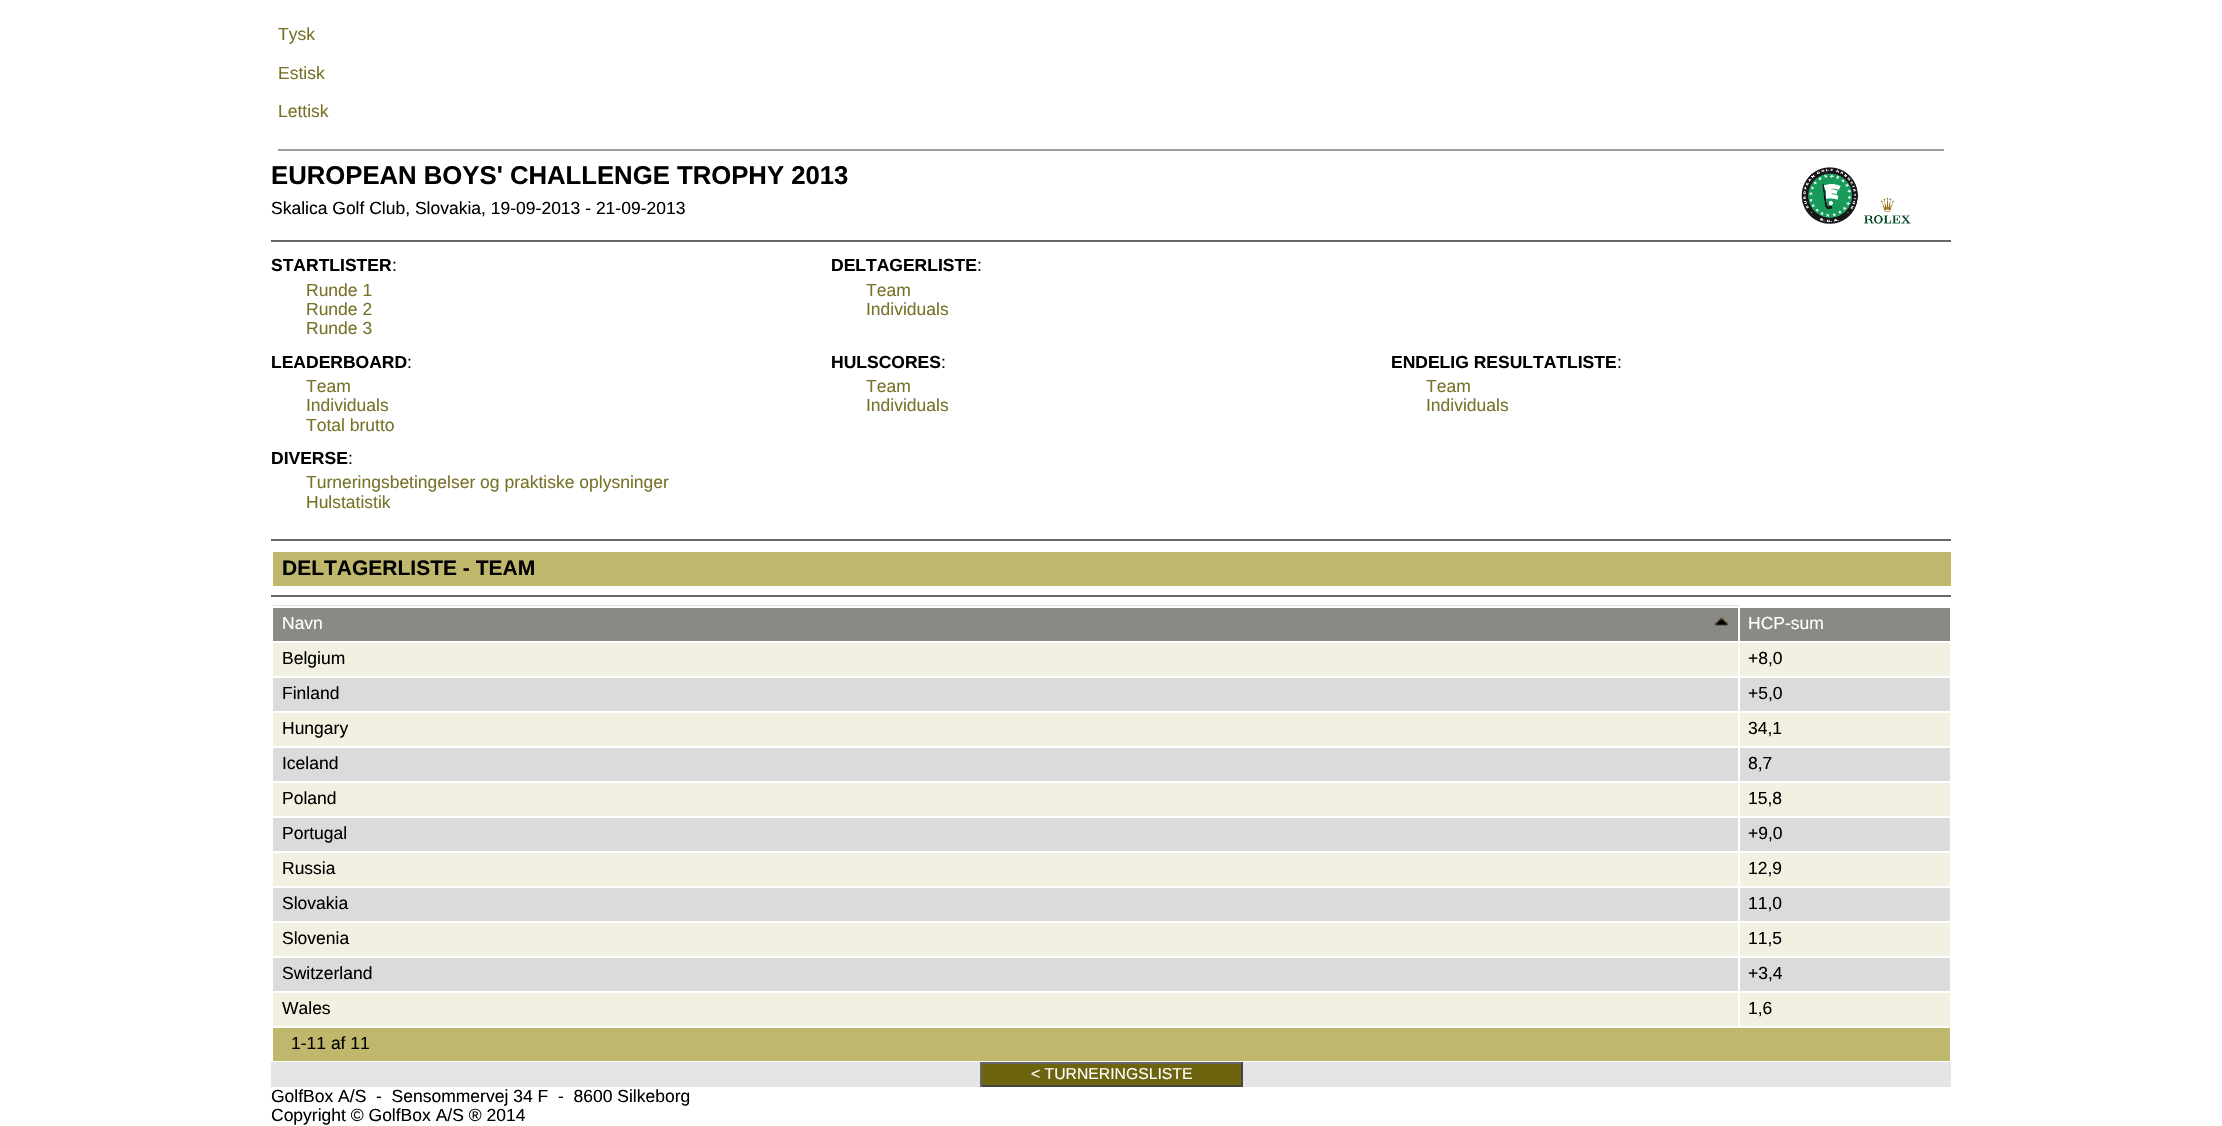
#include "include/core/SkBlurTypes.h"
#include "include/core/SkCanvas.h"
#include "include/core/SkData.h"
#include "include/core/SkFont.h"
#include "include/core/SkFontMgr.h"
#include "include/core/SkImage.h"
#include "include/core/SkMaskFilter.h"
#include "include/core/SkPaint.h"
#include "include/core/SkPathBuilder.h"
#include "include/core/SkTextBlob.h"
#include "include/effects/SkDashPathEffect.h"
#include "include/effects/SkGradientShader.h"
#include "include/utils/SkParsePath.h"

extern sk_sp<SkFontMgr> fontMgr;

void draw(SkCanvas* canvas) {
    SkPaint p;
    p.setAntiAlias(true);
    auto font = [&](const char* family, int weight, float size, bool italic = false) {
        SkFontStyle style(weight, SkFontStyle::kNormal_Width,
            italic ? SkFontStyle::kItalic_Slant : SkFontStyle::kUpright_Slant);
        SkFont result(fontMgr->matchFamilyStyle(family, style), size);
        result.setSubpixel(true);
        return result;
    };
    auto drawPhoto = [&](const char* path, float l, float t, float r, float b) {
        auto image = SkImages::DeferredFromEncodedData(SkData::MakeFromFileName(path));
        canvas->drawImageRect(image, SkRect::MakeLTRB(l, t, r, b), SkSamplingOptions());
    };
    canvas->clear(0xFFFFFFFF);
    auto font1 = font("Liberation Sans", 400, 17.5f);
    p.setColor(0xFF787128);
    {
        const struct { const char* s; float x, y; } items[] = {
            {"Tysk", 278, 40},
            {"Estisk", 278, 79},
            {"Lettisk", 278, 117},
        };
        for (auto [s, x, y] : items) {
            canvas->drawString(s, x, y, font1, p);
        }
    }
    p.setColor(0xFF9C9E9C);
    canvas->drawRect(SkRect::MakeLTRB(278, 149, 1944, 151), p);
    auto font2 = font("Liberation Sans", 700, 25.7f);
    p.setColor(0xFF000000);
    canvas->drawString("EUROPEAN BOYS' CHALLENGE TROPHY 2013", 271, 184, font2, p);
    canvas->drawString("Skalica Golf Club, Slovakia, 19-09-2013 - 21-09-2013", 271, 214, font1, p);
    drawPhoto("media/1.png", 1801, 167, 1911, 224);
    p.setColor(0xFF666666);
    canvas->drawRect(SkRect::MakeLTRB(271, 240, 1951, 242), p);
    auto font3 = font("Liberation Sans", 700, 17.5f);
    p.setColor(0xFF000000);
    canvas->drawString("STARTLISTER", 271, 271, font3, p);
    canvas->drawString(":", 392, 271, font1, p);
    p.setColor(0xFF787128);
    {
        const struct { const char* s; float x, y; } items[] = {
            {"Runde 1", 306, 296},
            {"Runde 2", 306, 315},
            {"Runde 3", 306, 334},
        };
        for (auto [s, x, y] : items) {
            canvas->drawString(s, x, y, font1, p);
        }
    }
    p.setColor(0xFF000000);
    canvas->drawString("DELTAGERLISTE", 831, 271, font3, p);
    canvas->drawString(":", 977, 271, font1, p);
    p.setColor(0xFF787128);
    canvas->drawString("Team", 866, 296, font1, p);
    canvas->drawString("Individuals", 866, 315, font1, p);
    p.setColor(0xFF000000);
    canvas->drawString("LEADERBOARD", 271, 368, font3, p);
    canvas->drawString(":", 407, 368, font1, p);
    p.setColor(0xFF787128);
    {
        const struct { const char* s; float x, y; } items[] = {
            {"Team", 306, 392},
            {"Individuals", 306, 411},
            {"Total brutto", 306, 431},
        };
        for (auto [s, x, y] : items) {
            canvas->drawString(s, x, y, font1, p);
        }
    }
    p.setColor(0xFF000000);
    canvas->drawString("HULSCORES", 831, 368, font3, p);
    canvas->drawString(":", 941, 368, font1, p);
    p.setColor(0xFF787128);
    canvas->drawString("Team", 866, 392, font1, p);
    canvas->drawString("Individuals", 866, 411, font1, p);
    p.setColor(0xFF000000);
    canvas->drawString("ENDELIG RESULTATLISTE", 1391, 368, font3, p);
    canvas->drawString(":", 1617, 368, font1, p);
    p.setColor(0xFF787128);
    canvas->drawString("Team", 1426, 392, font1, p);
    canvas->drawString("Individuals", 1426, 411, font1, p);
    p.setColor(0xFF000000);
    canvas->drawString("DIVERSE", 271, 464, font3, p);
    canvas->drawString(":", 348, 464, font1, p);
    p.setColor(0xFF787128);
    canvas->drawString("Turneringsbetingelser og praktiske oplysninger", 306, 488, font1, p);
    canvas->drawString("Hulstatistik", 306, 508, font1, p);
    p.setColor(0xFF666666);
    canvas->drawRect(SkRect::MakeLTRB(271, 539, 1951, 541), p);
    p.setColor(0xFFBFB76C);
    canvas->drawRect(SkRect::MakeLTRB(273, 552, 1951, 586), p);
    auto font4 = font("Liberation Sans", 700, 21);
    p.setColor(0xFF000000);
    canvas->drawString("DELTAGERLISTE - TEAM", 282, 575, font4, p);
    p.setColor(0xFF666666);
    canvas->drawRect(SkRect::MakeLTRB(271, 595, 1951, 597), p);
    p.setColor(0xFF8A8983);
    canvas->drawRect(SkRect::MakeLTRB(273, 608, 1950, 641), p);
    drawPhoto("media/2.png", 273, 605, 1740, 626);
    {
        const struct { float l, t, r, b; SkColor color; } items[] = {
            {273, 643, 1950, 676, 0xFFF2F0E0},
            {273, 678, 1950, 711, 0xFFDBDBDB},
            {273, 713, 1950, 746, 0xFFF2F0E0},
            {273, 748, 1950, 781, 0xFFDBDBDB},
            {273, 783, 1950, 816, 0xFFF2F0E0},
            {273, 818, 1950, 851, 0xFFDBDBDB},
            {273, 853, 1950, 886, 0xFFF2F0E0},
            {273, 888, 1950, 921, 0xFFDBDBDB},
            {273, 923, 1950, 956, 0xFFF2F0E0},
            {273, 958, 1950, 991, 0xFFDBDBDB},
            {273, 993, 1950, 1026, 0xFFF2F0E0},
            {1738, 641, 1740, 1027, 0xFFFFFFFF},
            {1738, 606, 1740, 642, 0xFFFFFFFF},
            {271, 606, 1740, 608, 0xFFFFFFFF},
        };
        for (auto [l, t, r, b, color] : items) {
            p.setColor(color);
            canvas->drawRect(SkRect::MakeLTRB(l, t, r, b), p);
        }
    }
    canvas->drawString("Navn", 282, 629, font1, p);
    canvas->drawString("HCP-sum", 1748, 629, font1, p);
    p.setColor(0xFF000000);
    {
        const struct { const char* s; float x, y; } items[] = {
            {"Belgium", 282, 664},
            {"+8,0", 1748, 664},
            {"Finland", 282, 699},
            {"+5,0", 1748, 699},
            {"Hungary", 282, 734},
            {"34,1", 1748, 734},
            {"Iceland", 282, 769},
            {"8,7", 1748, 769},
            {"Poland", 282, 804},
            {"15,8", 1748, 804},
            {"Portugal", 282, 839},
            {"+9,0", 1748, 839},
            {"Russia", 282, 874},
            {"12,9", 1748, 874},
            {"Slovakia", 282, 909},
            {"11,0", 1748, 909},
            {"Slovenia", 282, 944},
            {"11,5", 1748, 944},
            {"Switzerland", 282, 979},
            {"+3,4", 1748, 979},
            {"Wales", 282, 1014},
            {"1,6", 1748, 1014},
        };
        for (auto [s, x, y] : items) {
            canvas->drawString(s, x, y, font1, p);
        }
    }
    p.setColor(0xFFBFB76C);
    canvas->drawRect(SkRect::MakeLTRB(273, 1028, 1950, 1061), p);
    p.setColor(0xFF000000);
    canvas->drawString("1-11 af 11", 291, 1049, font1, p);
    {
        const struct { float l, t, r, b; SkColor color; } items[] = {
            {271, 1062, 1951, 1087, 0xFFE5E5E5},
            {982, 1064, 1241, 1085, 0xFF6C640E},
            {980, 1062, 1243, 1064, 0xFF666666},
            {1241, 1062, 1243, 1087, 0xFF444444},
            {980, 1085, 1243, 1087, 0xFF444444},
            {980, 1062, 982, 1087, 0xFF666666},
        };
        for (auto [l, t, r, b, color] : items) {
            p.setColor(color);
            canvas->drawRect(SkRect::MakeLTRB(l, t, r, b), p);
        }
    }
    auto font5 = font("Liberation Sans", 400, 15.75f);
    p.setColor(0xFFFFFFFF);
    canvas->drawString("< TURNERINGSLISTE", 1031, 1079, font5, p);
    p.setColor(0xFF000000);
    canvas->drawString("GolfBox A/S  -  Sensommervej 34 F  -  8600 Silkeborg", 271, 1102, font1, p);
    canvas->drawString("Copyright © GolfBox A/S ® 2014", 271, 1121, font1, p);
}
